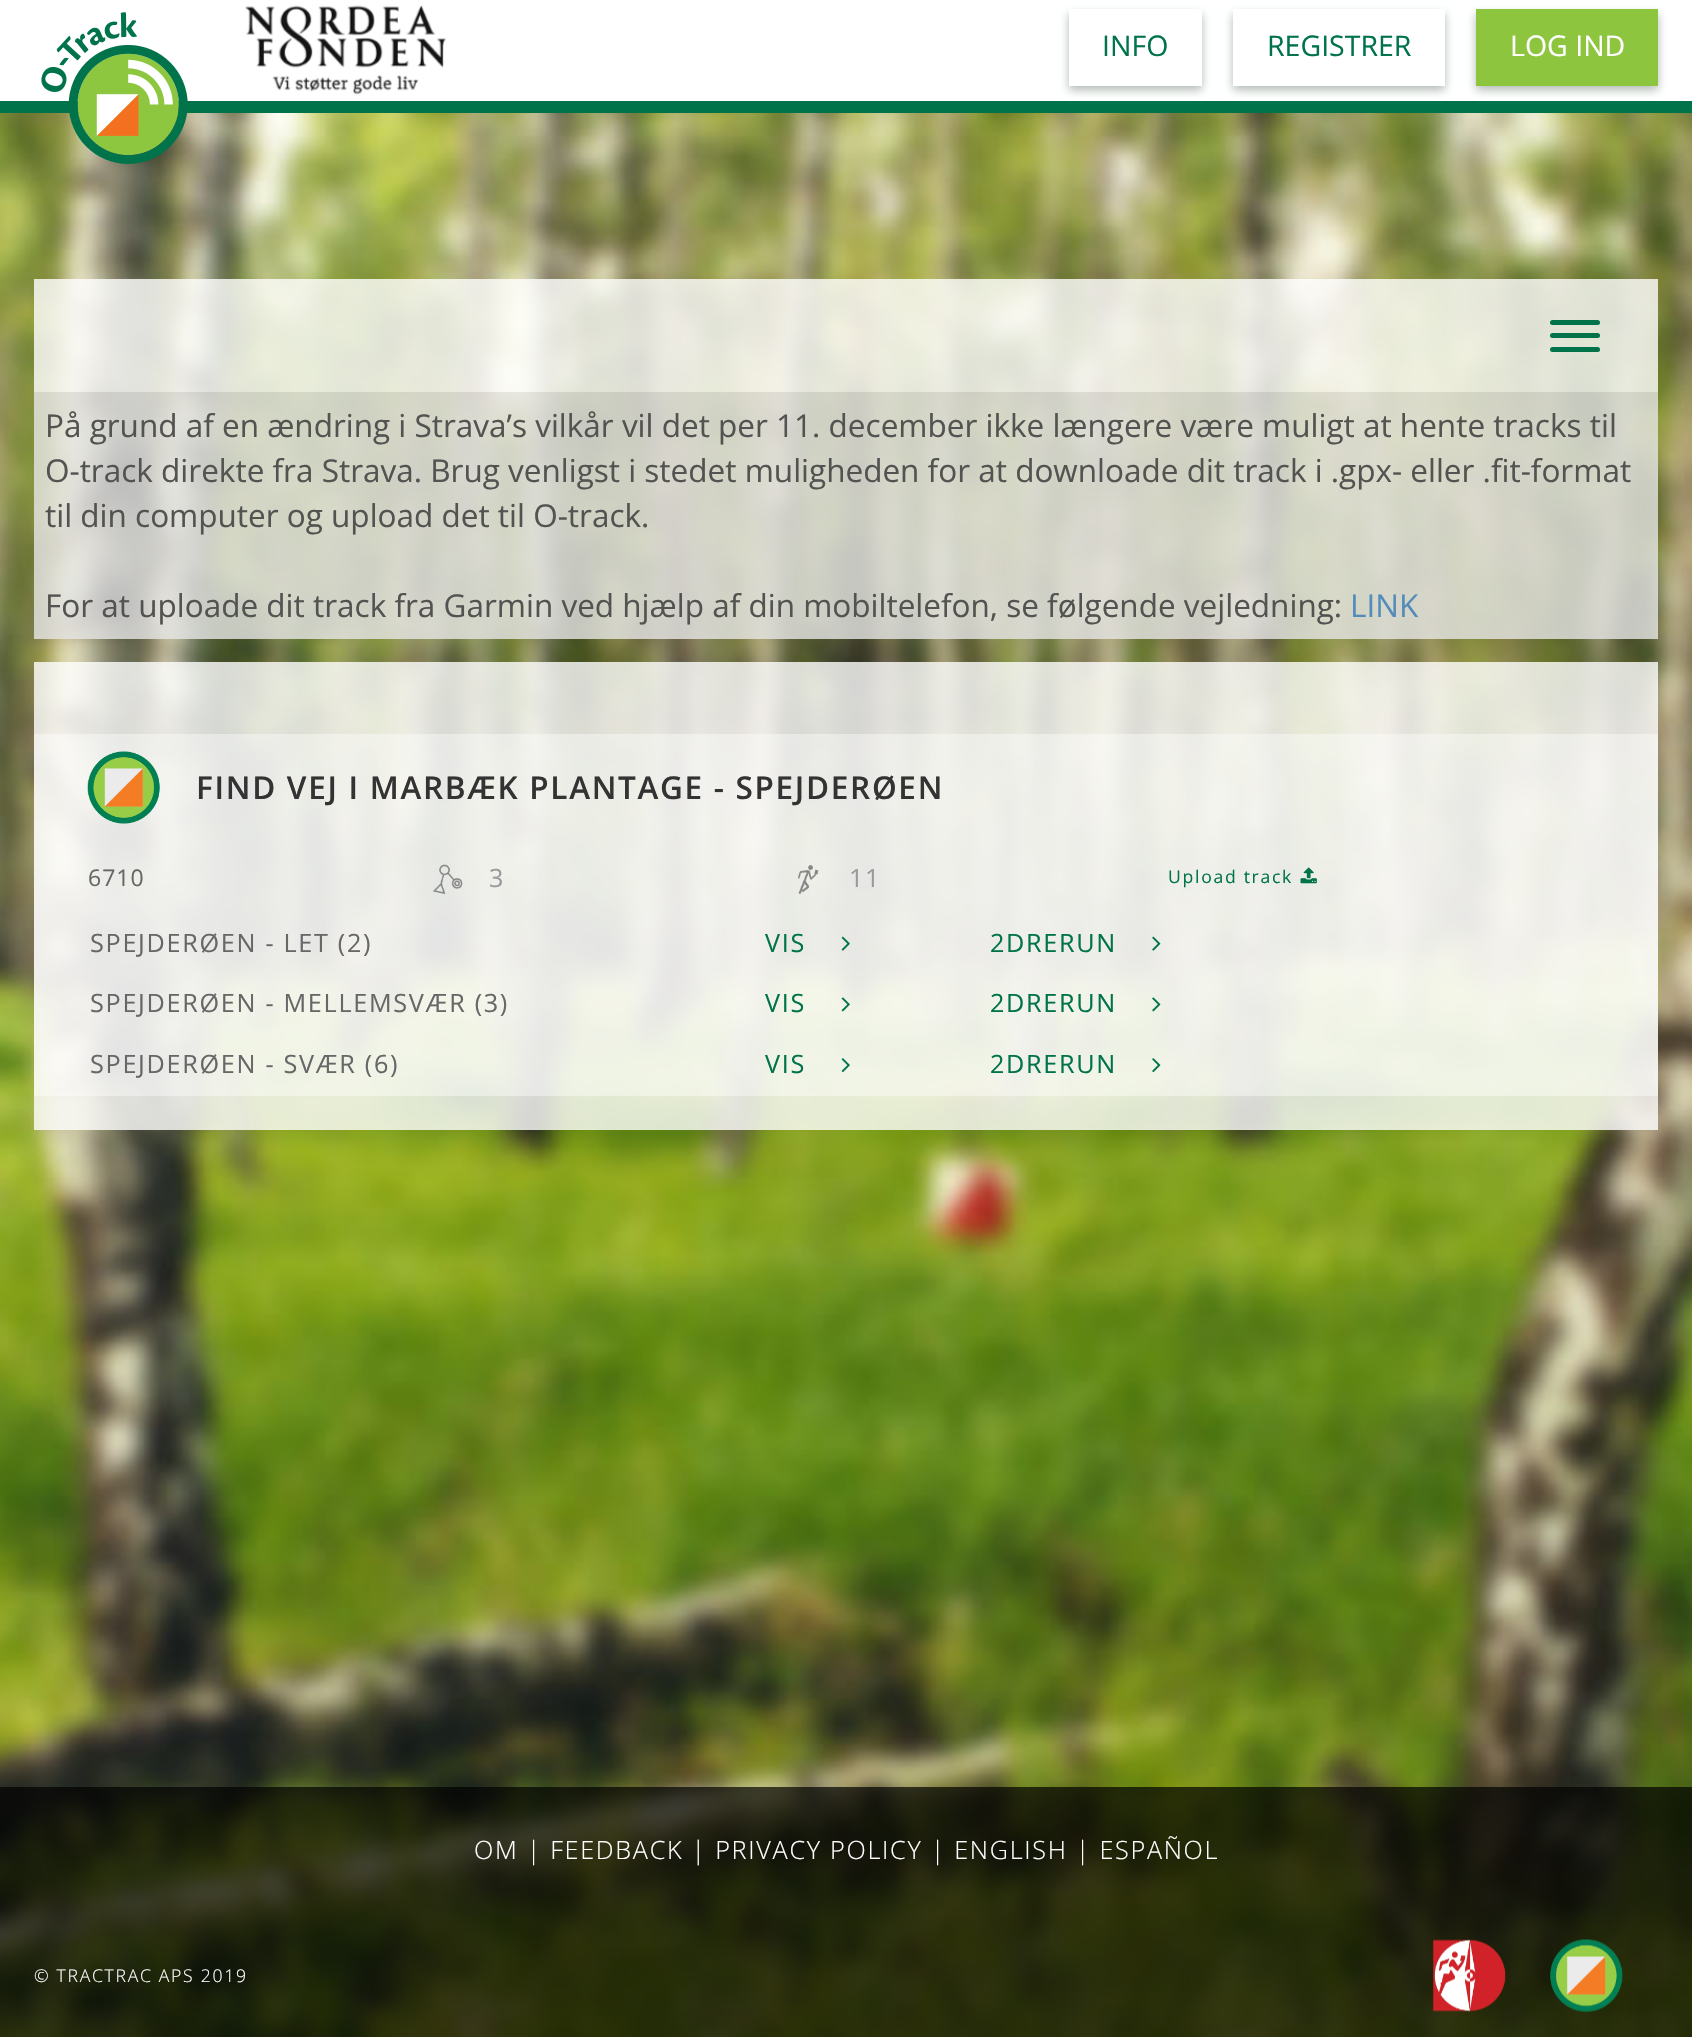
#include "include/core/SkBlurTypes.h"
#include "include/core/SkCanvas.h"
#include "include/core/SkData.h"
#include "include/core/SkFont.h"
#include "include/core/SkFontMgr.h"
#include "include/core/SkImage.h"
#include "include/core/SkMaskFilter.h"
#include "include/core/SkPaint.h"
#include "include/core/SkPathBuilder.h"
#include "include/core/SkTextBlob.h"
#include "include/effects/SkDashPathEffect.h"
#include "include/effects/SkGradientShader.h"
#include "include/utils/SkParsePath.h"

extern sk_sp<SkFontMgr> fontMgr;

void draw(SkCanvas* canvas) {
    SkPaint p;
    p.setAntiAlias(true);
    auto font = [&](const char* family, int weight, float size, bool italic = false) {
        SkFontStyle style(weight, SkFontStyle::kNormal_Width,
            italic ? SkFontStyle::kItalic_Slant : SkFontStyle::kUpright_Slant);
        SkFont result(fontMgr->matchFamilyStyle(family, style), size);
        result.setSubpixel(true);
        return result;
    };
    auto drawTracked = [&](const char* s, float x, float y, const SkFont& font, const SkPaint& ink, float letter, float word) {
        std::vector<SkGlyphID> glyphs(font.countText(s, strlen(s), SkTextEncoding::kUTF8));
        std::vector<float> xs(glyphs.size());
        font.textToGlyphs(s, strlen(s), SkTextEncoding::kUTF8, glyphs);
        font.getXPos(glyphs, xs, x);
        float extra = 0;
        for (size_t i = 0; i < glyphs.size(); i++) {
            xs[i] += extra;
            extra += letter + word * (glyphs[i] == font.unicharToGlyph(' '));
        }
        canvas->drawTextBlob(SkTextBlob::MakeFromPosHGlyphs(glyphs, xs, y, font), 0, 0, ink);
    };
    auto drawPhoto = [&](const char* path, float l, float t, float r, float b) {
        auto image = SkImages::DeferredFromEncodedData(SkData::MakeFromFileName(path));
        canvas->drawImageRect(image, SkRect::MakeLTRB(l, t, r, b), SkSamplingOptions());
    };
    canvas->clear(0xFFFFFFFF);
    p.setColor(0xFF00734A);
    canvas->drawRect(SkRect::MakeLTRB(0, 101, 1692, 113), p);
    drawPhoto("media/3.png", 0, 113, 1692, 2037);
    drawPhoto("media/1.png", 41, 12, 188, 164);
    drawPhoto("media/2.png", 245, 5, 447, 95);
    p.setColor(0x4D011C04);
    p.setMaskFilter(SkMaskFilter::MakeBlur(kNormal_SkBlurStyle, 4.5f));
    canvas->drawRect(SkRect::MakeLTRB(1069, 14, 1202, 90), p);
    p.setMaskFilter(nullptr);
    p.setColor(0xFFFFFFFF);
    canvas->drawRect(SkRect::MakeLTRB(1069, 9, 1202, 86), p);
    auto font1 = font("Open Sans", 400, 28.5f);
    p.setColor(0xFF00734A);
    canvas->drawString("INFO", 1102, 56, font1, p);
    p.setColor(0x4D011C04);
    p.setMaskFilter(SkMaskFilter::MakeBlur(kNormal_SkBlurStyle, 4.5f));
    canvas->drawRect(SkRect::MakeLTRB(1233, 14, 1445, 90), p);
    p.setMaskFilter(nullptr);
    p.setColor(0xFFFFFFFF);
    canvas->drawRect(SkRect::MakeLTRB(1233, 9, 1445, 86), p);
    p.setColor(0xFF00734A);
    canvas->drawString("REGISTRER", 1267, 56, font1, p);
    p.setColor(0x4D011C04);
    p.setMaskFilter(SkMaskFilter::MakeBlur(kNormal_SkBlurStyle, 4.5f));
    canvas->drawRect(SkRect::MakeLTRB(1476, 14, 1658, 90), p);
    p.setMaskFilter(nullptr);
    p.setColor(0xFF8DC53F);
    canvas->drawRect(SkRect::MakeLTRB(1476, 9, 1658, 86), p);
    p.setColor(0xFFFFFFFF);
    canvas->drawString("LOG IND", 1510, 56, font1, p);
    p.setColor(0xCCFFFFFF);
    canvas->drawRect(SkRect::MakeLTRB(34, 279, 1658, 392), p);
    p.setColor(0xFF00734A);
    canvas->drawRoundRect(SkRect::MakeLTRB(1550, 320, 1600, 325), 2.5f, 2.5f, p);
    canvas->drawRoundRect(SkRect::MakeLTRB(1550, 333, 1600, 338), 2.5f, 2.5f, p);
    canvas->drawRoundRect(SkRect::MakeLTRB(1550, 347, 1600, 352), 2.5f, 2.5f, p);
    p.setColor(0xCCE6E6E6);
    canvas->drawRect(SkRect::MakeLTRB(34, 392, 1658, 639), p);
    auto font2 = font("Open Sans", 400, 31.5f);
    p.setColor(0xFF535351);
    {
        const struct { const char* s; float x, y; } items[] = {
            {"På grund af en ændring i Strava’s vilkår vil det per 11. december ikke længere være muligt at hente tracks til", 45, 437},
            {"O-track direkte fra Strava. Brug venligst i stedet muligheden for at downloade dit track i .gpx- eller .fit-format", 45, 482},
            {"til din computer og upload det til O-track.", 45, 527},
            {"For at uploade dit track fra Garmin ved hjælp af din mobiltelefon, se følgende vejledning:", 45, 617},
        };
        for (auto [s, x, y] : items) {
            canvas->drawString(s, x, y, font2, p);
        }
    }
    p.setColor(0xFF538CBA);
    canvas->drawString("LINK", 1350, 617, font2, p);
    p.setColor(0xCCFFFFFF);
    canvas->drawRect(SkRect::MakeLTRB(34, 662, 1658, 1130), p);
    p.setColor(0x66FFFFFF);
    canvas->drawRect(SkRect::MakeLTRB(34, 734, 1658, 914), p);
    drawPhoto("media/4.png", 87, 751, 160, 824);
    auto font3 = font("Open Sans", 600, 31.5f);
    p.setColor(0xFF333333);
    drawTracked("FIND VEJ I MARBÆK PLANTAGE - SPEJDERØEN", 196, 799, font3, p, 1.7f, 0);
    auto font4 = font("Open Sans", 400, 23);
    p.setColor(0xFF676767);
    drawTracked("6710", 88, 886, font4, p, 1, 0);
    drawPhoto("media/5.png", 432, 864, 463, 895);
    auto font5 = font("Open Sans", 400, 25.2f);
    p.setColor(0xFF999999);
    drawTracked("3", 489, 887, font5, p, 1.7f, 0);
    drawPhoto("media/6.png", 798, 864, 819, 894);
    drawTracked("11", 849, 887, font5, p, 1.7f, 0);
    auto font6 = font("Open Sans", 400, 17.6f);
    p.setColor(0xFF00734A);
    drawTracked("Upload track", 1168, 883, font6, p, 1.7f, 0);
    drawPhoto("media/7.png", 1300, 867, 1317, 884);
    p.setColor(0x66FFFFFF);
    canvas->drawRect(SkRect::MakeLTRB(34, 914, 1658, 1096), p);
    p.setColor(0xFF676767);
    drawTracked("SPEJDERØEN - LET (2)", 90, 952, font5, p, 1.7f, 0);
    p.setColor(0xFF00734A);
    drawTracked("VIS", 765, 952, font5, p, 1.7f, 0);
    drawPhoto("media/8.png", 841, 936, 850, 951);
    drawTracked("2DRERUN", 990, 952, font5, p, 1.7f, 0);
    drawPhoto("media/9.png", 1152, 936, 1161, 951);
    p.setColor(0xFF676767);
    drawTracked("SPEJDERØEN - MELLEMSVÆR (3)", 90, 1012, font5, p, 1.7f, 0);
    p.setColor(0xFF00734A);
    drawTracked("VIS", 765, 1012, font5, p, 1.7f, 0);
    drawPhoto("media/10.png", 841, 997, 850, 1012);
    drawTracked("2DRERUN", 990, 1012, font5, p, 1.7f, 0);
    drawPhoto("media/11.png", 1152, 997, 1161, 1012);
    p.setColor(0xFF676767);
    drawTracked("SPEJDERØEN - SVÆR (6)", 90, 1073, font5, p, 1.7f, 0);
    p.setColor(0xFF00734A);
    drawTracked("VIS", 765, 1073, font5, p, 1.7f, 0);
    drawPhoto("media/12.png", 841, 1058, 850, 1073);
    drawTracked("2DRERUN", 990, 1073, font5, p, 1.7f, 0);
    drawPhoto("media/13.png", 1152, 1058, 1161, 1073);
    p.setColor(0xB3000000);
    canvas->drawRect(SkRect::MakeLTRB(0, 1787, 1692, 2037), p);
    auto font7 = font("Open Sans", 300, 25.2f);
    p.setColor(0xFFFFFFFF);
    drawTracked("OM | FEEDBACK | PRIVACY POLICY | ENGLISH | ESPAÑOL", 474, 1859, font7, p, 1.7f, 0);
    auto font8 = font("Open Sans", 300, 17.6f);
    drawTracked("© TRACTRAC APS 2019", 34, 1982, font8, p, 1.7f, 0);
    drawPhoto("media/14.png", 1433, 1939, 1506, 2012);
    drawPhoto("media/15.png", 1550, 1939, 1623, 2012);
}
